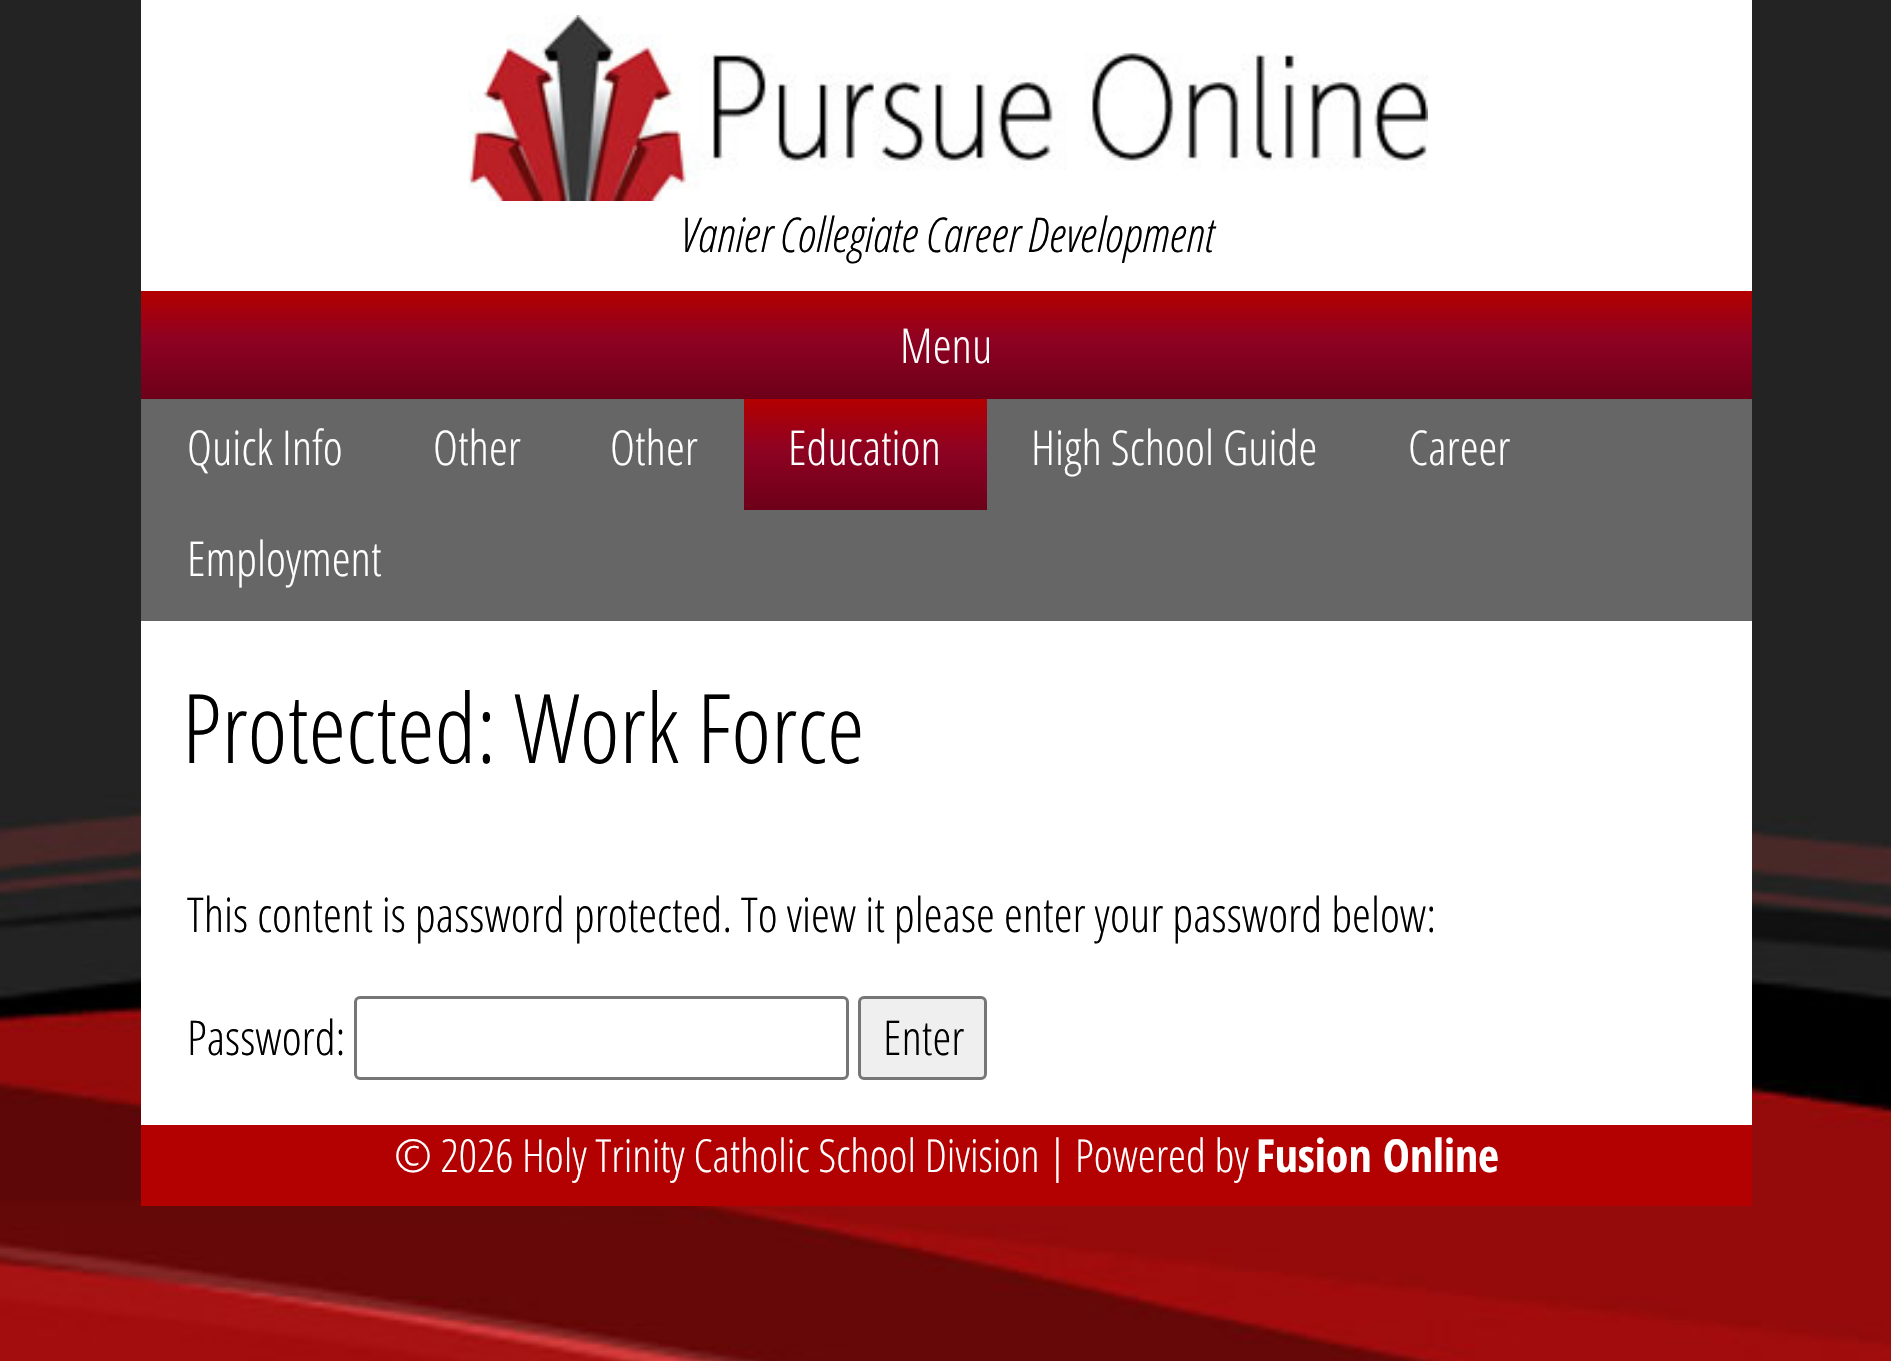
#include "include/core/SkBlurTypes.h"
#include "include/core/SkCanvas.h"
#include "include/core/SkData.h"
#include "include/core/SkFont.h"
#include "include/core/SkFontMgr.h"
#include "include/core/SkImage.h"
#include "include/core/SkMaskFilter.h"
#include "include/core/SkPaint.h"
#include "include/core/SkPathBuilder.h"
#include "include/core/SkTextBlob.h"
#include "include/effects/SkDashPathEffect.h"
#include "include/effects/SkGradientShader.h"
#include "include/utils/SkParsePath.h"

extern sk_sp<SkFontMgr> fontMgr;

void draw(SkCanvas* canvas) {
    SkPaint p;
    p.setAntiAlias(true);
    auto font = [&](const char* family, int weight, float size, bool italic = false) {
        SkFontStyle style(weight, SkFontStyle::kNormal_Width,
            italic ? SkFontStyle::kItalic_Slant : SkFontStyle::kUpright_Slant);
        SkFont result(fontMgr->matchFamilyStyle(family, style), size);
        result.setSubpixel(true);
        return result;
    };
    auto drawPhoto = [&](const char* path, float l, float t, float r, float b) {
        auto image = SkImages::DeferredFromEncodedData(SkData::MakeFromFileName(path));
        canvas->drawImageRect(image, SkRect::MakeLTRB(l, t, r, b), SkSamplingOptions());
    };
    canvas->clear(0xFF232323);
    drawPhoto("media/1.png", 0, 768, 1891, 1361);
    p.setColor(0xFFFFFFFF);
    canvas->drawRect(SkRect::MakeLTRB(141, 0, 1752, 291), p);
    drawPhoto("media/2.png", 468, 15, 1428, 201);
    auto font1 = font("Open Sans Condensed", 300, 48, true);
    p.setColor(0xFF000000);
    canvas->drawString("Vanier Collegiate Career Development", 680, 252, font1, p);
    {
        const SkColor colors[] = {0xFFB30000, 0xFF8F0222, 0xFF6D0019};
        const float stops[] = {0, 0.44f, 1};
        const SkPoint ends[] = {{947, 291}, {947, 399}};
        p.setShader(SkGradientShader::MakeLinear(ends, colors, stops, 3, SkTileMode::kClamp));
        p.setAlpha(255);
    }
    canvas->drawRect(SkRect::MakeLTRB(141, 291, 1752, 399), p);
    auto font2 = font("Open Sans Condensed", 300, 48);
    p.setShader(nullptr);
    p.setColor(0xFFFFFFFF);
    canvas->drawString("Menu", 900, 363, font2, p);
    p.setColor(0xFF666666);
    canvas->drawRect(SkRect::MakeLTRB(141, 399, 1752, 621), p);
    p.setColor(0xFFFFFFFF);
    {
        const struct { const char* s; float x, y; } items[] = {
            {"Quick Info", 187, 465},
            {"Other", 433, 465},
            {"Other", 610, 465},
        };
        for (auto [s, x, y] : items) {
            canvas->drawString(s, x, y, font2, p);
        }
    }
    {
        const SkColor colors[] = {0xFFB30000, 0xFF8F0222, 0xFF6D0019};
        const float stops[] = {0, 0.44f, 1};
        const SkPoint ends[] = {{866, 399}, {866, 510}};
        p.setShader(SkGradientShader::MakeLinear(ends, colors, stops, 3, SkTileMode::kClamp));
        p.setAlpha(255);
    }
    canvas->drawRect(SkRect::MakeLTRB(744, 399, 987, 510), p);
    p.setShader(nullptr);
    p.setColor(0xFFFFFFFF);
    {
        const struct { const char* s; float x, y; } items[] = {
            {"Education", 788, 465},
            {"High School Guide", 1031, 465},
            {"Career", 1408, 465},
            {"Employment", 187, 576},
        };
        for (auto [s, x, y] : items) {
            canvas->drawString(s, x, y, font2, p);
        }
    }
    canvas->drawRect(SkRect::MakeLTRB(141, 621, 1752, 1125), p);
    auto font3 = font("Open Sans Condensed", 300, 96);
    p.setColor(0xFF000000);
    canvas->drawString("Protected: Work Force", 182, 763, font3, p);
    canvas->drawString("This content is password protected. To view it please enter your password below:", 187, 932, font2, p);
    canvas->drawString("Password:", 187, 1055, font2, p);
    p.setStyle(SkPaint::kStroke_Style);
    p.setStrokeWidth(3);
    p.setColor(0xFF767676);
    canvas->drawRoundRect(SkRect::MakeLTRB(355.5f, 997.5f, 847.5f, 1078.5f), 4.5f, 4.5f, p);
    p.setStyle(SkPaint::kFill_Style);
    p.setColor(0xFFEFEFEF);
    canvas->drawRoundRect(SkRect::MakeLTRB(859.5f, 997.5f, 985.5f, 1078.5f), 4.5f, 4.5f, p);
    p.setStyle(SkPaint::kStroke_Style);
    p.setColor(0xFF767676);
    canvas->drawRoundRect(SkRect::MakeLTRB(859.5f, 997.5f, 985.5f, 1078.5f), 4.5f, 4.5f, p);
    p.setStyle(SkPaint::kFill_Style);
    p.setColor(0xFF000000);
    canvas->drawString("Enter", 883, 1055, font2, p);
    p.setColor(0xFFB30000);
    canvas->drawRect(SkRect::MakeLTRB(141, 1125, 1752, 1206), p);
    auto font4 = font("Open Sans Condensed", 300, 45.6f);
    p.setColor(0xFFFFFFFF);
    canvas->drawString("© 2026 Holy Trinity Catholic School Division | Powered by", 394, 1172, font4, p);
    auto font5 = font("Open Sans Condensed", 700, 45.6f);
    canvas->drawString("Fusion Online", 1256, 1172, font5, p);
}
